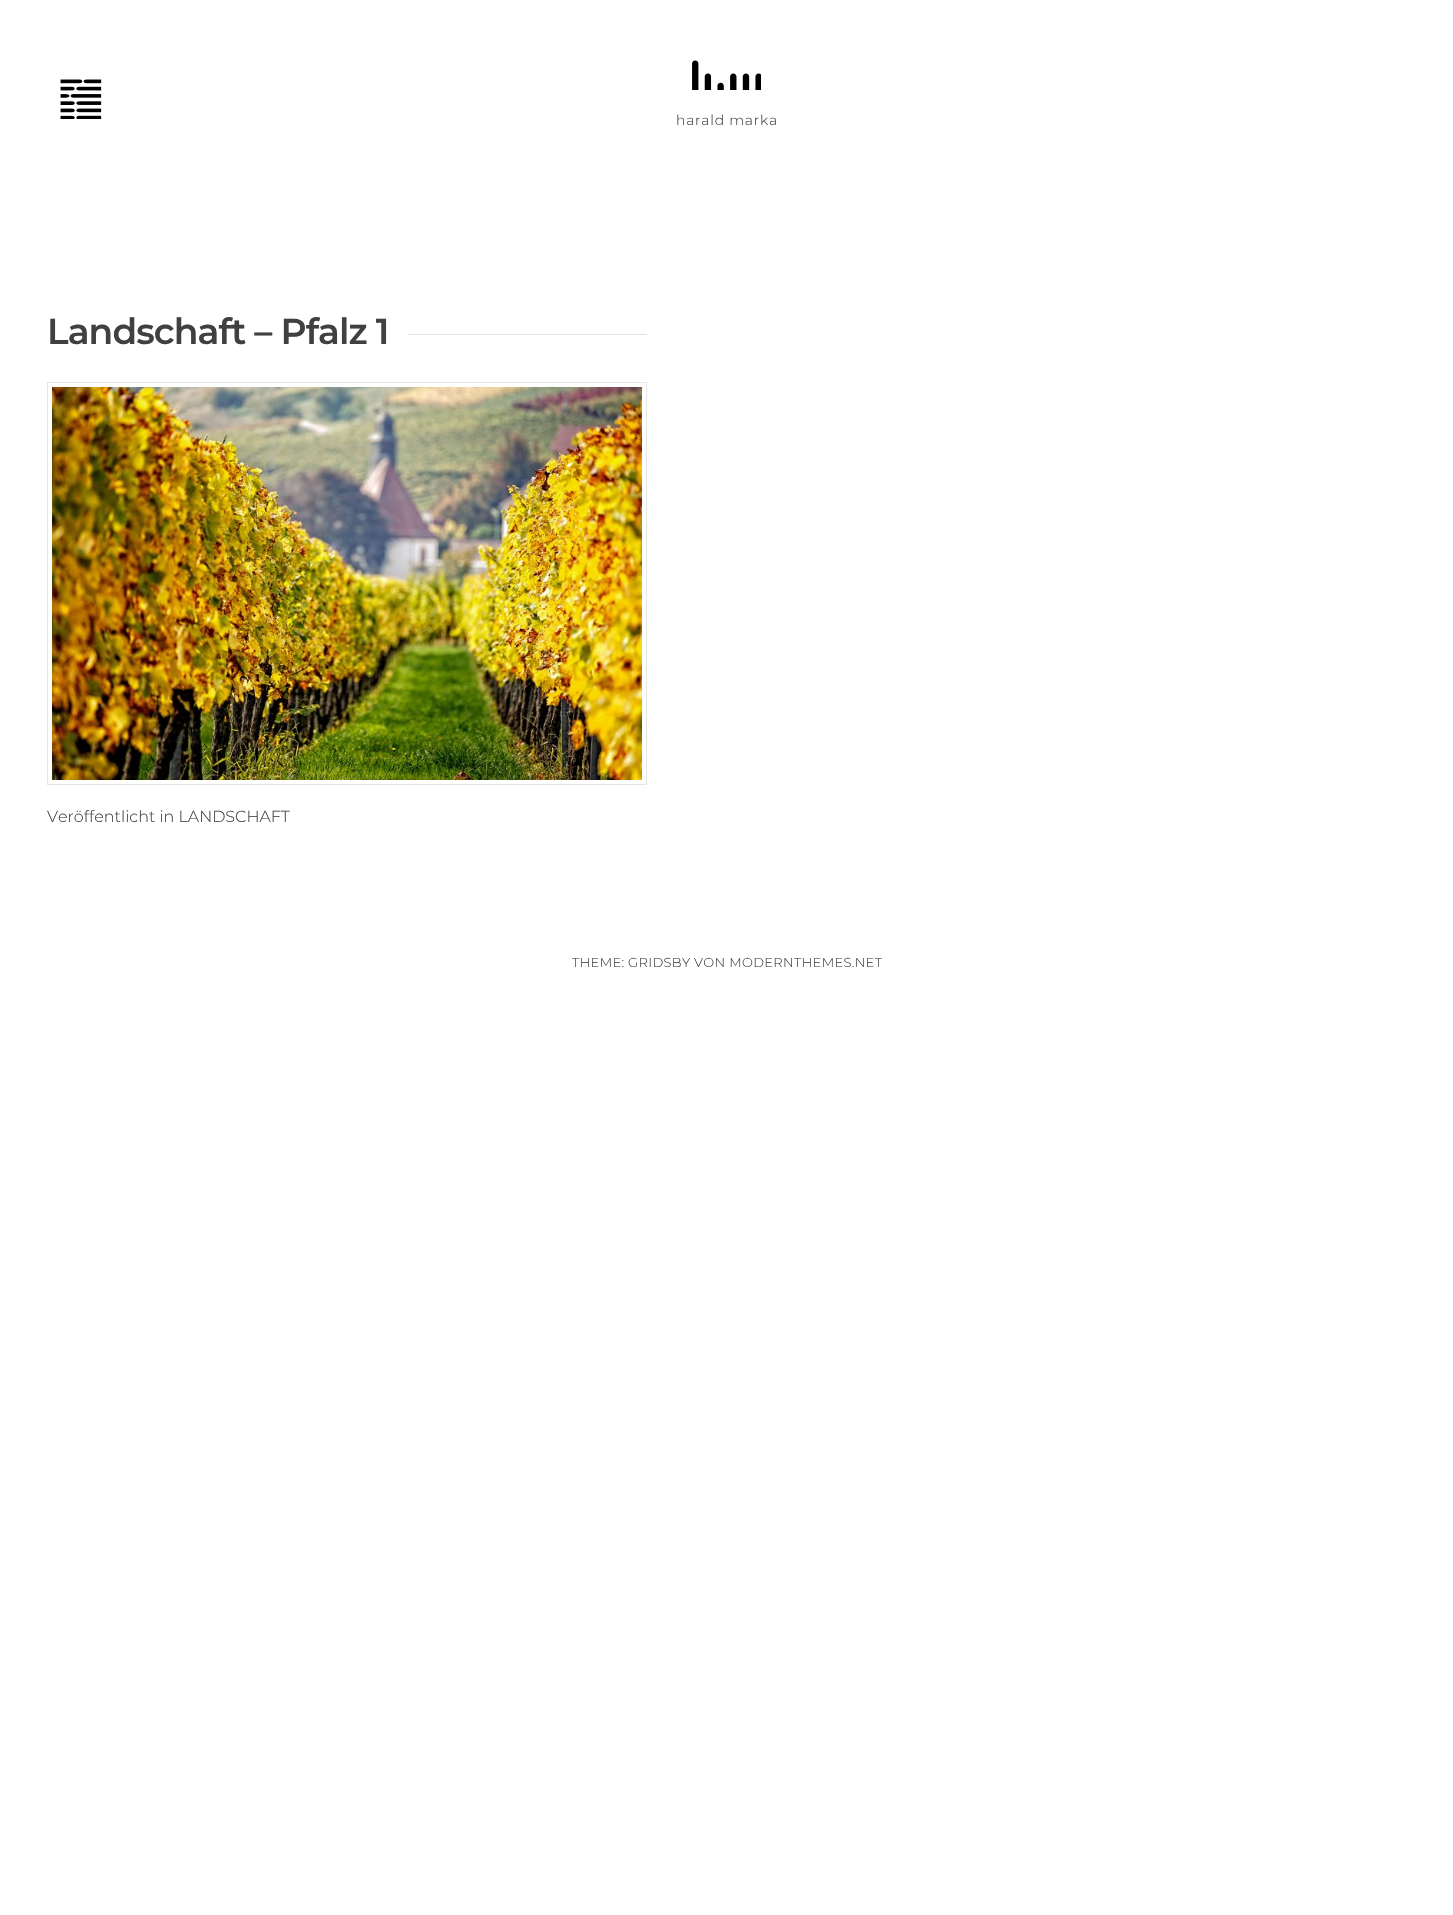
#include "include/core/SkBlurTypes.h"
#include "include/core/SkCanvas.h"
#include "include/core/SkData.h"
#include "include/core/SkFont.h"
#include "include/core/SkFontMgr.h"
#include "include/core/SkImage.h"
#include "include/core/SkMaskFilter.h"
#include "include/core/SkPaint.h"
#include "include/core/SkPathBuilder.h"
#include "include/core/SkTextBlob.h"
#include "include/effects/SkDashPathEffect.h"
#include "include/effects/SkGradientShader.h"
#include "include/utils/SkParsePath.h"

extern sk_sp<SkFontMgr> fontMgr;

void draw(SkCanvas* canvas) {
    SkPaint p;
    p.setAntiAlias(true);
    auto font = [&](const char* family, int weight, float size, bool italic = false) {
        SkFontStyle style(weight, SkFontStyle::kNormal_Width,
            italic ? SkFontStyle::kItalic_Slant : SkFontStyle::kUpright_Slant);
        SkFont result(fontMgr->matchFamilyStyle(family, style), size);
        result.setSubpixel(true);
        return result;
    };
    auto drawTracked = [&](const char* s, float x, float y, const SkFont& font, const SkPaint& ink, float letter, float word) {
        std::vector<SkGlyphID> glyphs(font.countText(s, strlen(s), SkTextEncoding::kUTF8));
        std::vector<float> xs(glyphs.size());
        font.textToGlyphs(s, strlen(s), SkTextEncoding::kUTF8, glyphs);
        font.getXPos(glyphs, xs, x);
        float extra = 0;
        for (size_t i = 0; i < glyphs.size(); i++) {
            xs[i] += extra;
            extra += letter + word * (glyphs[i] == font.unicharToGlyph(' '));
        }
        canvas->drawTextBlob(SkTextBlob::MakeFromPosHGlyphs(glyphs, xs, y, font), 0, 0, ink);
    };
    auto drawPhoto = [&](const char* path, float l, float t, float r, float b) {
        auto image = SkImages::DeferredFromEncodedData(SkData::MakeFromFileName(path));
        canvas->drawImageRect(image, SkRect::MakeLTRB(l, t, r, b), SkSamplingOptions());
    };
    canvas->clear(0xFFFFFFFF);
    drawPhoto("media/2.png", 70, 79, 102, 119);
    drawPhoto("media/1.png", 60, 79, 83, 119);
    drawPhoto("media/3.png", 692, 60, 761, 90);
    auto font1 = font("Montserrat", 300, 14);
    p.setColor(0xFF404040);
    drawTracked("harald marka", 676, 125, font1, p, 0.75f, 0);
    auto font2 = font("Montserrat", 600, 36);
    drawTracked("Landschaft – Pfalz 1", 47, 344, font2, p, -0.9f, 0);
    p.setColor(0xFFE5E5E5);
    canvas->drawRect(SkRect::MakeLTRB(408, 334, 647, 335), p);
    p.setStyle(SkPaint::kStroke_Style);
    p.setStrokeWidth(1);
    canvas->drawRect(SkRect::MakeLTRB(47.5f, 382.5f, 646.5f, 784.5f), p);
    drawPhoto("media/4.png", 52, 387, 642, 780);
    auto font3 = font("Montserrat", 300, 16);
    p.setStyle(SkPaint::kFill_Style);
    p.setColor(0xFF404040);
    canvas->drawString("Veröffentlicht in LANDSCHAFT", 47, 822, font3, p);
    auto font4 = font("Montserrat", 300, 13);
    drawTracked("THEME: GRIDSBY VON MODERNTHEMES.NET", 572, 967, font4, p, 0.35f, 0);
}
